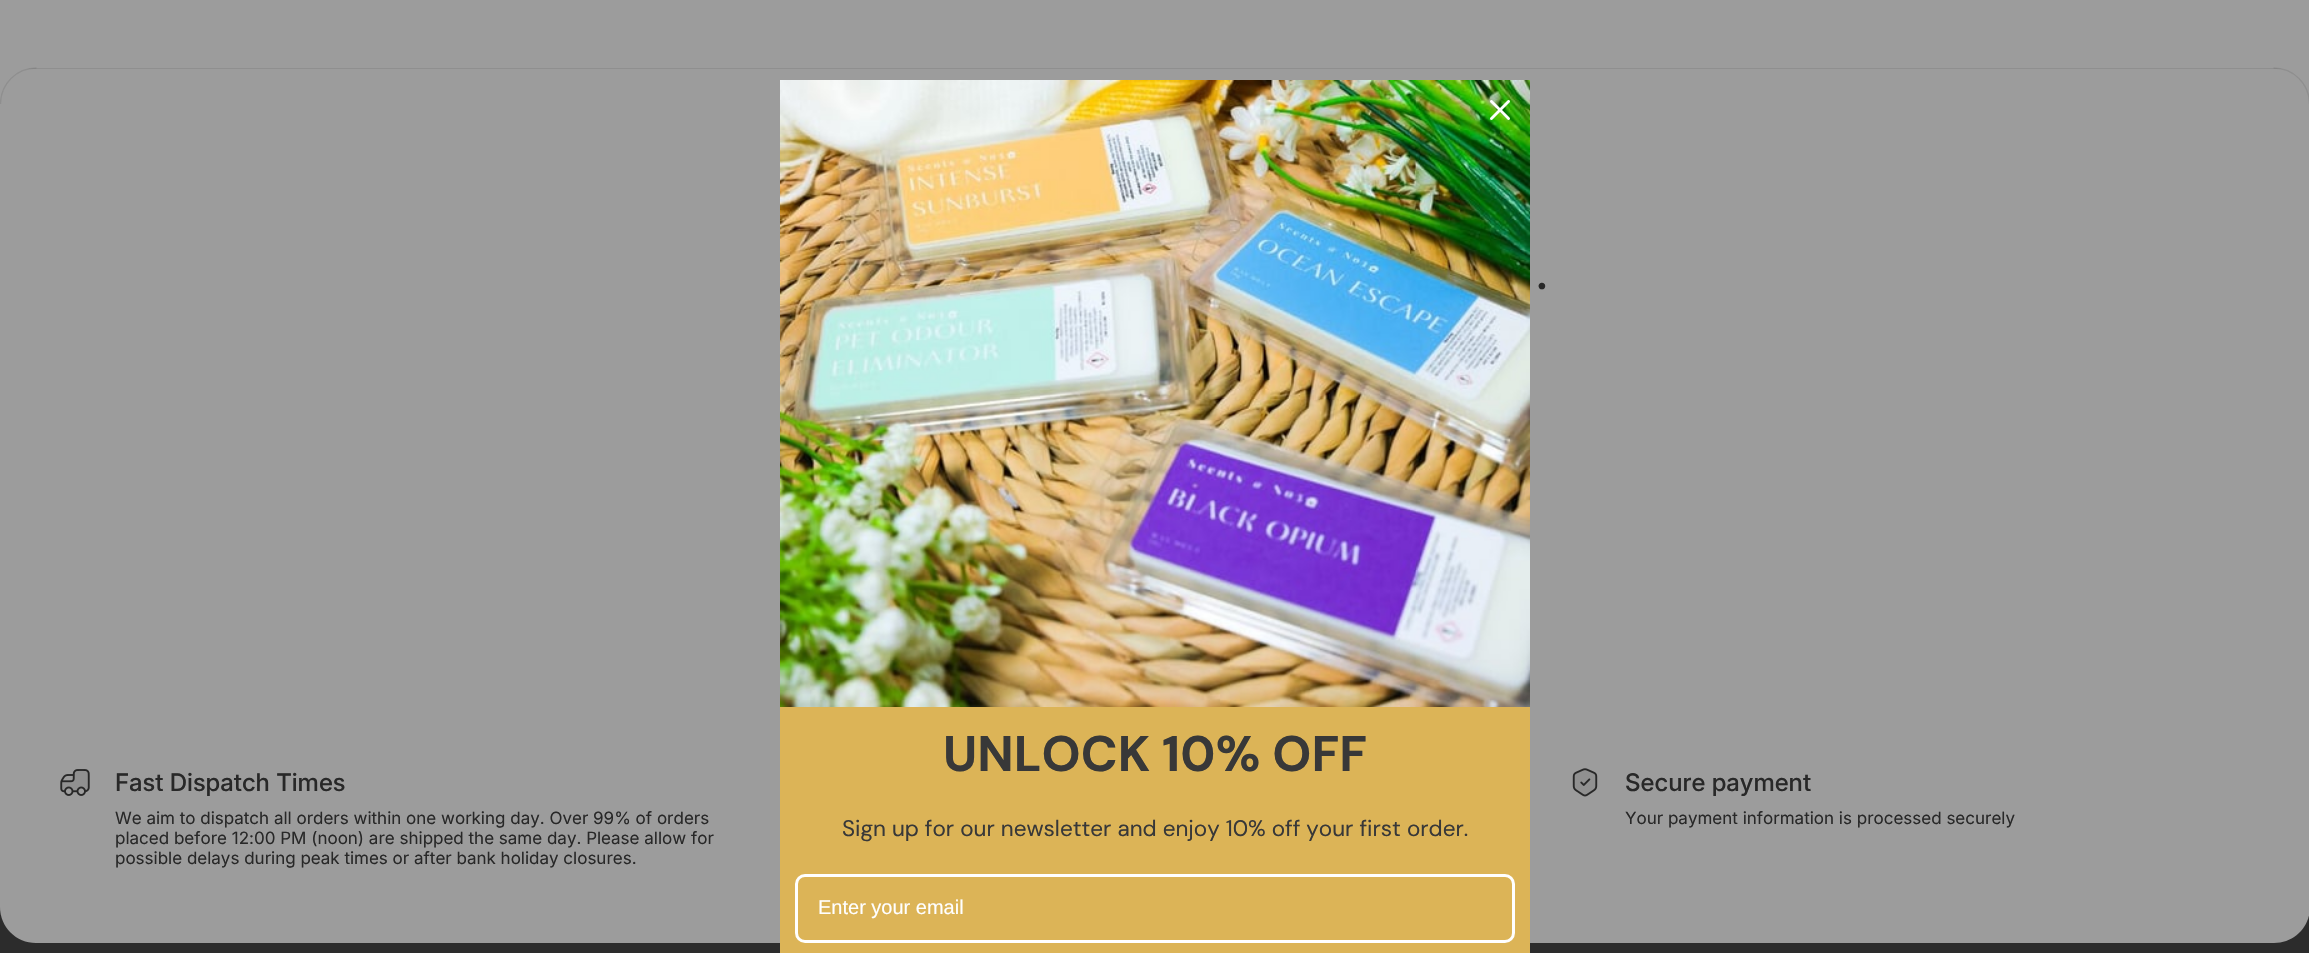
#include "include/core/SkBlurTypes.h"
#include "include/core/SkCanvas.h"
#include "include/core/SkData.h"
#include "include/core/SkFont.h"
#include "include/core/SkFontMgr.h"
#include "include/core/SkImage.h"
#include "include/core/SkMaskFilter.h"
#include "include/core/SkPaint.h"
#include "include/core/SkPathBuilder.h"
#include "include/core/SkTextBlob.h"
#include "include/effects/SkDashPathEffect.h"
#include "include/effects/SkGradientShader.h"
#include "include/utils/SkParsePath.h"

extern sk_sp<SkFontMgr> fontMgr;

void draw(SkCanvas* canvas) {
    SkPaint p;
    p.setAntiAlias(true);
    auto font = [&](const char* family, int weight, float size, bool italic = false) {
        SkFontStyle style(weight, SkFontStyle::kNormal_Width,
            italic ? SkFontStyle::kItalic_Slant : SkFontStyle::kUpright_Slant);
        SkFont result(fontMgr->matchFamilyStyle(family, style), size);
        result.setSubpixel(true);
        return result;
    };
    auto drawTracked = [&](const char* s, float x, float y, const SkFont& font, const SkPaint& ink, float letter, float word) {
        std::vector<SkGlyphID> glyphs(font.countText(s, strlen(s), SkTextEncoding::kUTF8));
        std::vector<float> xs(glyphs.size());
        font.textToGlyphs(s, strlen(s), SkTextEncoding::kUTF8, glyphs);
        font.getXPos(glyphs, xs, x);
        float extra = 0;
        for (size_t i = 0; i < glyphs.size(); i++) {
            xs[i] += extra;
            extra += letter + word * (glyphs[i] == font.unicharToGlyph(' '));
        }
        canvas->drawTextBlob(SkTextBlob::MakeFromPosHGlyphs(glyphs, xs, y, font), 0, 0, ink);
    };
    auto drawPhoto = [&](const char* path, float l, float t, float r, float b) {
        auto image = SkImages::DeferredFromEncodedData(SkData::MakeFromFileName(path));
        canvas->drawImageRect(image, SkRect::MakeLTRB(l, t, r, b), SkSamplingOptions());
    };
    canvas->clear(0xFF2C2C2C);
    p.setColor(0xFF9C9C9C);
    canvas->drawRect(SkRect::MakeLTRB(0, 0, 2309, 693), p);
    p.setColor(0xFF8F8F8F);
    canvas->drawRect(SkRect::MakeLTRB(28, 68, 2282, 69), p);
    canvas->save();
    canvas->clipRect(SkRect::MakeLTRB(0, 68, 36, 105));
    p.setColor(0xFF9C9C9C);
    canvas->drawPath(SkPathBuilder(SkPathFillType::kEvenOdd).moveTo(36.5f, 67.5f).lineTo(0, 67.5f).lineTo(0, 104).lineTo(0.5f, 104).cubicTo(0.5f, 84, 16.5f, 68, 36.5f, 68).close().detach(), p);
    canvas->restore();
    p.setStyle(SkPaint::kStroke_Style);
    p.setStrokeWidth(1.3f);
    p.setColor(0x1C282828);
    canvas->drawPath(SkPathBuilder().moveTo(0.5f, 104).cubicTo(0.5f, 84, 16.5f, 68, 36.5f, 68).detach(), p);
    canvas->save();
    canvas->clipRect(SkRect::MakeLTRB(2274, 68, 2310, 105));
    p.setStyle(SkPaint::kFill_Style);
    p.setColor(0xFF9C9C9C);
    canvas->drawPath(SkPathBuilder(SkPathFillType::kEvenOdd).moveTo(2273.5f, 67.5f).lineTo(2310, 67.5f).lineTo(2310, 104).lineTo(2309.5f, 104).cubicTo(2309.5f, 84, 2293.5f, 68, 2273.5f, 68).close().detach(), p);
    canvas->restore();
    p.setStyle(SkPaint::kStroke_Style);
    p.setColor(0x1C282828);
    canvas->drawPath(SkPathBuilder().moveTo(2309.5f, 104).cubicTo(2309.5f, 84, 2293.5f, 68, 2273.5f, 68).detach(), p);
    auto font1 = font("Inter", 700, 40);
    p.setStyle(SkPaint::kFill_Style);
    p.setColor(0xFF282828);
    drawTracked(".", 1537, 289, font1, p, -1, 0);
    p.setColor(0xFF9C9C9C);
    canvas->drawPath(SkPathBuilder().moveTo(0, 693).lineTo(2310, 693).lineTo(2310, 907).cubicTo(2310, 927, 2294, 943, 2274, 943).lineTo(36, 943).cubicTo(16, 943, 0, 927, 0, 907).close().detach(), p);
    drawPhoto("media/1.png", 60, 769, 90, 796);
    auto font2 = font("Inter", 500, 24.25f);
    p.setColor(0xFF282828);
    canvas->drawString("Fast Dispatch Times", 115, 791, font2, p);
    auto font3 = font("Inter", 400, 17);
    {
        const struct { const char* s; float x, y; } items[] = {
            {"We aim to dispatch all orders within one working day. Over 99% of orders", 115, 824},
            {"placed before 12:00 PM (noon) are shipped the same day. Please allow for", 115, 844},
            {"possible delays during peak times or after bank holiday closures.", 115, 864},
        };
        for (auto [s, x, y] : items) {
            canvas->drawString(s, x, y, font3, p);
        }
    }
    drawPhoto("media/2.png", 1572, 768, 1598, 797);
    canvas->drawString("Secure payment", 1625, 791, font2, p);
    canvas->drawString("Your payment information is processed securely", 1625, 824, font3, p);
    drawPhoto("media/4.png", 780, 80, 1530, 707);
    drawPhoto("media/3.png", 1490, 100, 1510, 120);
    p.setColor(0xFFDCB457);
    canvas->drawRect(SkRect::MakeLTRB(780, 707, 1530, 953), p);
    auto font4 = font("DM Sans", 700, 50);
    p.setColor(0xFF383838);
    canvas->drawString("UNLOCK 10% OFF", 943, 771, font4, p);
    auto font5 = font("DM Sans", 400, 22.5f);
    canvas->drawString("Sign up for our newsletter and enjoy 10% off your first order.", 842, 836, font5, p);
    p.setStyle(SkPaint::kStroke_Style);
    p.setStrokeWidth(3);
    p.setColor(0xFFFFFFFF);
    canvas->drawRoundRect(SkRect::MakeLTRB(796.5f, 875.5f, 1513.5f, 941.5f), 8.5f, 8.5f, p);
    auto font6 = font("Liberation Sans", 400, 20);
    p.setStyle(SkPaint::kFill_Style);
    canvas->drawString("Enter your email", 818, 914, font6, p);
}
